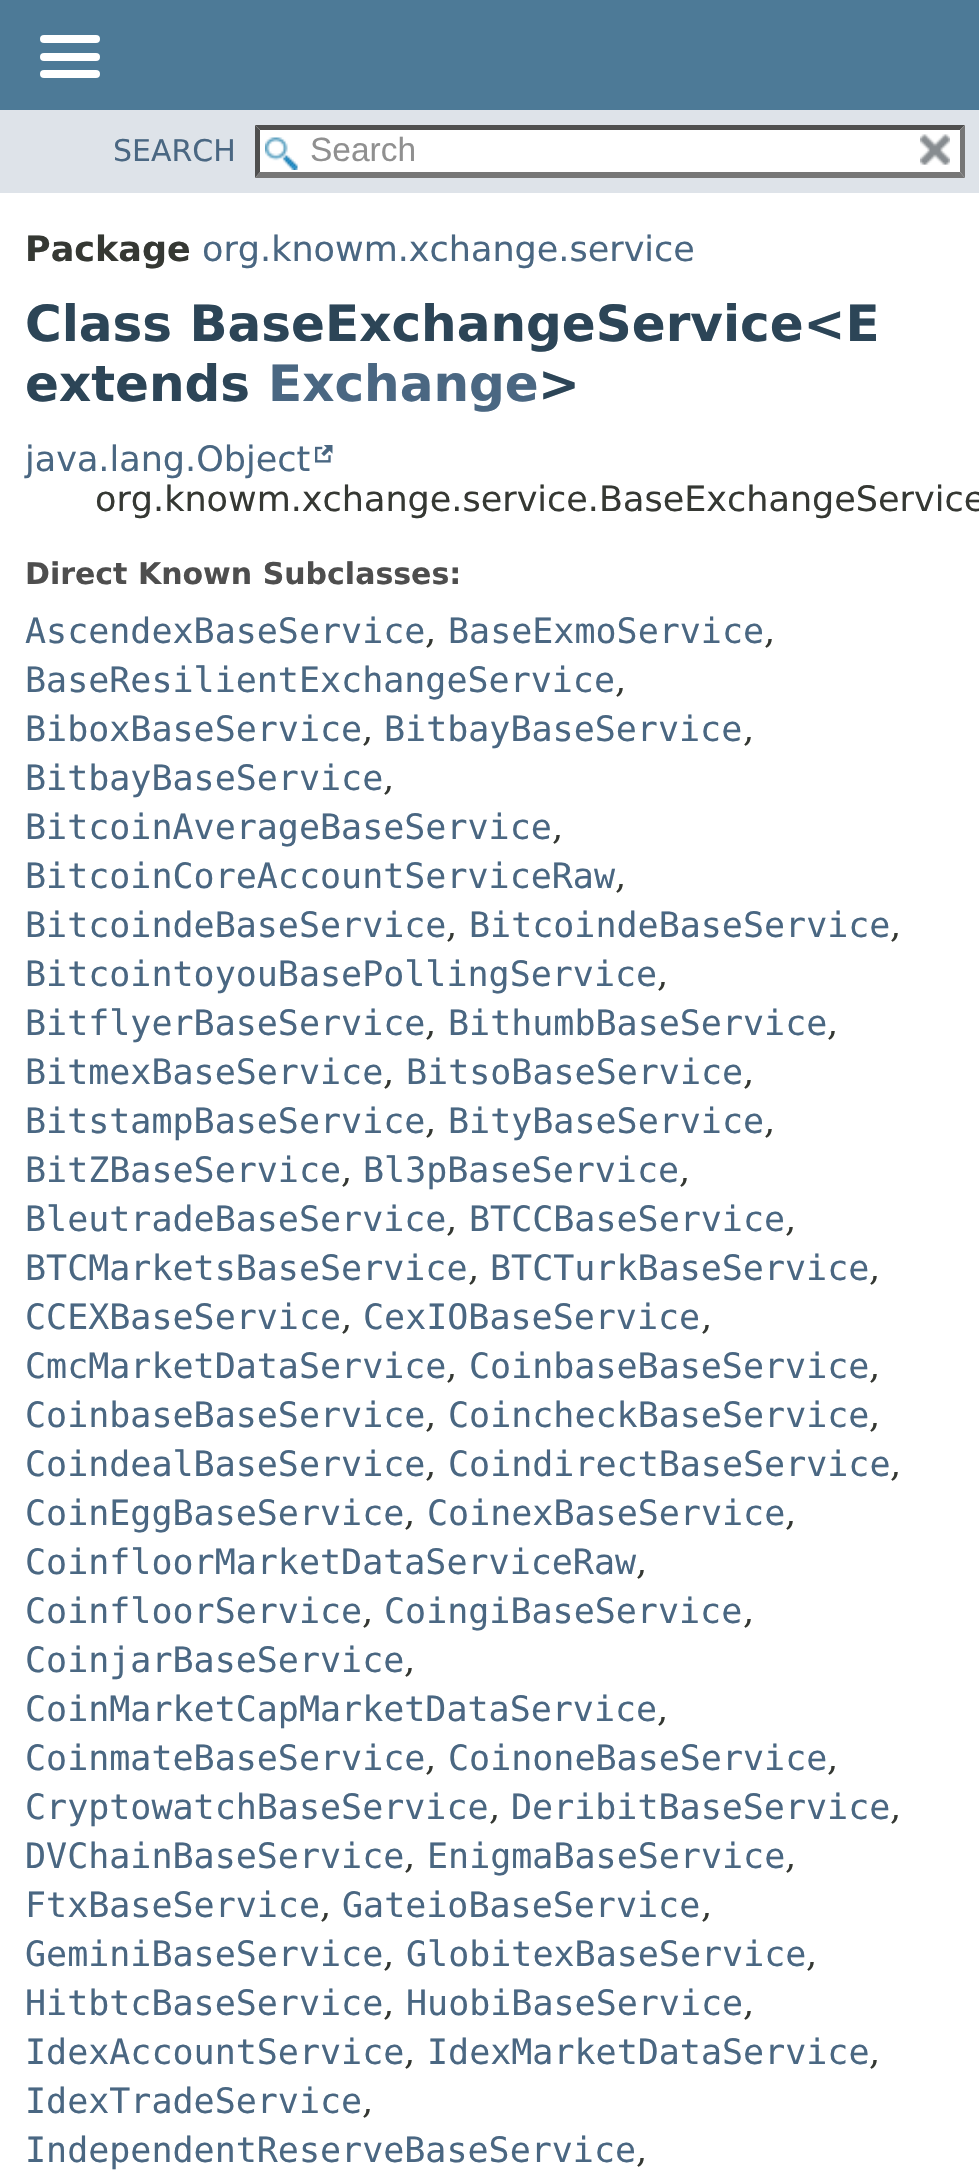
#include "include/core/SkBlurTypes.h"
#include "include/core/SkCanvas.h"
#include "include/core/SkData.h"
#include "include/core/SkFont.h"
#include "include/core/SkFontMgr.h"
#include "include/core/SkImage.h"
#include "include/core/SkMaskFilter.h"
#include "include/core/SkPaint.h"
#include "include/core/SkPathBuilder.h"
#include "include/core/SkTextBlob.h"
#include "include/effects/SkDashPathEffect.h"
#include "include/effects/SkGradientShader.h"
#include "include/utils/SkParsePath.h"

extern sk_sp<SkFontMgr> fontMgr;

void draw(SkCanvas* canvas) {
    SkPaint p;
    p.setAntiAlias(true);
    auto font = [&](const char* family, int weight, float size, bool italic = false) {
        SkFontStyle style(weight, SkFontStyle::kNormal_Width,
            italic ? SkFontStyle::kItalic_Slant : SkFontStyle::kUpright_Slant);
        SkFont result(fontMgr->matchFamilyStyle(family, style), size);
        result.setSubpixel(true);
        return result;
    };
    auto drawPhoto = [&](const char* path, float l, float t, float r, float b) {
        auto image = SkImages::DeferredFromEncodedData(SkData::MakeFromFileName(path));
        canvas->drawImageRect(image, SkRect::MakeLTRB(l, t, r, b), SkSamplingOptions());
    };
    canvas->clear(0xFFFFFFFF);
    p.setColor(0xFF4D7A97);
    canvas->drawRect(SkRect::MakeLTRB(0, 0, 979, 110), p);
    p.setColor(0xFFFFFFFF);
    canvas->drawRoundRect(SkRect::MakeLTRB(40, 35, 100, 43), 4, 4, p);
    canvas->drawRoundRect(SkRect::MakeLTRB(40, 53, 100, 61), 4, 4, p);
    canvas->drawRoundRect(SkRect::MakeLTRB(40, 70, 100, 78), 4, 4, p);
    p.setColor(0xFFDEE3E9);
    canvas->drawRect(SkRect::MakeLTRB(0, 110, 979, 193), p);
    auto font1 = font("DejaVu Sans", 400, 30);
    p.setColor(0xFF4A6782);
    canvas->drawString("SEARCH", 113, 161, font1, p);
    p.setColor(0xFFFFFFFF);
    canvas->drawRect(SkRect::MakeLTRB(255, 125, 965, 178), p);
    drawPhoto("media/1.png", 265, 137, 298, 170);
    p.setColor(0xFF4F4F4F);
    canvas->drawPath(SkPathBuilder().moveTo(255, 125).lineTo(965, 125).lineTo(960, 130).lineTo(260, 130).close().detach(), p);
    p.setColor(0xFF767676);
    canvas->drawPath(SkPathBuilder().moveTo(965, 125).lineTo(965, 178).lineTo(960, 172).lineTo(960, 130).close().detach(), p);
    canvas->drawPath(SkPathBuilder().moveTo(965, 178).lineTo(255, 178).lineTo(260, 172).lineTo(960, 172).close().detach(), p);
    p.setColor(0xFF4F4F4F);
    canvas->drawPath(SkPathBuilder().moveTo(255, 178).lineTo(255, 125).lineTo(260, 130).lineTo(260, 172).close().detach(), p);
    auto font2 = font("Liberation Sans", 400, 33.5f);
    p.setColor(0xFF909090);
    canvas->drawString("Search", 310, 161, font2, p);
    drawPhoto("media/2.png", 920, 134, 950, 165);
    auto font3 = font("DejaVu Sans", 700, 35);
    p.setColor(0xFF353833);
    canvas->drawString("Package", 25, 261, font3, p);
    auto font4 = font("DejaVu Sans", 400, 35);
    p.setColor(0xFF4A6782);
    canvas->drawString("org.knowm.xchange.service", 202, 261, font4, p);
    auto font5 = font("DejaVu Sans", 700, 50);
    p.setColor(0xFF2C4557);
    canvas->drawString("Class BaseExchangeService<E", 25, 341, font5, p);
    canvas->drawString("extends", 25, 401, font5, p);
    p.setColor(0xFF4A6782);
    canvas->drawString("Exchange", 268, 401, font5, p);
    p.setColor(0xFF2C4557);
    canvas->drawString(">", 538, 401, font5, p);
    p.setColor(0xFF4A6782);
    canvas->drawString("java.lang.Object", 25, 471, font4, p);
    drawPhoto("media/3.png", 315, 445, 333, 463);
    p.setColor(0xFF353833);
    canvas->drawString("org.knowm.xchange.service.BaseExchangeService", 95, 511, font4, p);
    auto font6 = font("DejaVu Sans", 700, 30);
    p.setColor(0xFF4E4E4E);
    canvas->drawString("Direct Known Subclasses:", 25, 584, font6, p);
    auto font7 = font("DejaVu Sans Mono", 400, 35);
    p.setColor(0xFF4A6782);
    canvas->drawString("AscendexBaseService", 25, 643, font7, p);
    auto font8 = font("DejaVu Serif", 400, 35);
    p.setColor(0xFF353833);
    canvas->drawString(",", 425, 643, font8, p);
    p.setColor(0xFF4A6782);
    canvas->drawString("BaseExmoService", 448, 643, font7, p);
    p.setColor(0xFF353833);
    canvas->drawString(",", 764, 643, font8, p);
    p.setColor(0xFF4A6782);
    canvas->drawString("BaseResilientExchangeService", 25, 692, font7, p);
    p.setColor(0xFF353833);
    canvas->drawString(",", 615, 692, font8, p);
    p.setColor(0xFF4A6782);
    canvas->drawString("BiboxBaseService", 25, 741, font7, p);
    p.setColor(0xFF353833);
    canvas->drawString(",", 362, 741, font8, p);
    p.setColor(0xFF4A6782);
    canvas->drawString("BitbayBaseService", 384, 741, font7, p);
    p.setColor(0xFF353833);
    canvas->drawString(",", 743, 741, font8, p);
    p.setColor(0xFF4A6782);
    canvas->drawString("BitbayBaseService", 25, 790, font7, p);
    p.setColor(0xFF353833);
    canvas->drawString(",", 383, 790, font8, p);
    p.setColor(0xFF4A6782);
    canvas->drawString("BitcoinAverageBaseService", 25, 839, font7, p);
    p.setColor(0xFF353833);
    canvas->drawString(",", 552, 839, font8, p);
    p.setColor(0xFF4A6782);
    canvas->drawString("BitcoinCoreAccountServiceRaw", 25, 888, font7, p);
    p.setColor(0xFF353833);
    canvas->drawString(",", 615, 888, font8, p);
    p.setColor(0xFF4A6782);
    canvas->drawString("BitcoindeBaseService", 25, 937, font7, p);
    p.setColor(0xFF353833);
    canvas->drawString(",", 446, 937, font8, p);
    p.setColor(0xFF4A6782);
    canvas->drawString("BitcoindeBaseService", 469, 937, font7, p);
    p.setColor(0xFF353833);
    canvas->drawString(",", 890, 937, font8, p);
    p.setColor(0xFF4A6782);
    canvas->drawString("BitcointoyouBasePollingService", 25, 986, font7, p);
    p.setColor(0xFF353833);
    canvas->drawString(",", 657, 986, font8, p);
    p.setColor(0xFF4A6782);
    canvas->drawString("BitflyerBaseService", 25, 1035, font7, p);
    p.setColor(0xFF353833);
    canvas->drawString(",", 425, 1035, font8, p);
    p.setColor(0xFF4A6782);
    canvas->drawString("BithumbBaseService", 448, 1035, font7, p);
    p.setColor(0xFF353833);
    canvas->drawString(",", 827, 1035, font8, p);
    p.setColor(0xFF4A6782);
    canvas->drawString("BitmexBaseService", 25, 1084, font7, p);
    p.setColor(0xFF353833);
    canvas->drawString(",", 383, 1084, font8, p);
    p.setColor(0xFF4A6782);
    canvas->drawString("BitsoBaseService", 406, 1084, font7, p);
    p.setColor(0xFF353833);
    canvas->drawString(",", 743, 1084, font8, p);
    p.setColor(0xFF4A6782);
    canvas->drawString("BitstampBaseService", 25, 1133, font7, p);
    p.setColor(0xFF353833);
    canvas->drawString(",", 425, 1133, font8, p);
    p.setColor(0xFF4A6782);
    canvas->drawString("BityBaseService", 448, 1133, font7, p);
    p.setColor(0xFF353833);
    canvas->drawString(",", 764, 1133, font8, p);
    p.setColor(0xFF4A6782);
    canvas->drawString("BitZBaseService", 25, 1182, font7, p);
    p.setColor(0xFF353833);
    canvas->drawString(",", 341, 1182, font8, p);
    p.setColor(0xFF4A6782);
    canvas->drawString("Bl3pBaseService", 363, 1182, font7, p);
    p.setColor(0xFF353833);
    canvas->drawString(",", 679, 1182, font8, p);
    p.setColor(0xFF4A6782);
    canvas->drawString("BleutradeBaseService", 25, 1231, font7, p);
    p.setColor(0xFF353833);
    canvas->drawString(",", 446, 1231, font8, p);
    p.setColor(0xFF4A6782);
    canvas->drawString("BTCCBaseService", 469, 1231, font7, p);
    p.setColor(0xFF353833);
    canvas->drawString(",", 785, 1231, font8, p);
    p.setColor(0xFF4A6782);
    canvas->drawString("BTCMarketsBaseService", 25, 1280, font7, p);
    p.setColor(0xFF353833);
    canvas->drawString(",", 468, 1280, font8, p);
    p.setColor(0xFF4A6782);
    canvas->drawString("BTCTurkBaseService", 490, 1280, font7, p);
    p.setColor(0xFF353833);
    canvas->drawString(",", 869, 1280, font8, p);
    p.setColor(0xFF4A6782);
    canvas->drawString("CCEXBaseService", 25, 1329, font7, p);
    p.setColor(0xFF353833);
    canvas->drawString(",", 341, 1329, font8, p);
    p.setColor(0xFF4A6782);
    canvas->drawString("CexIOBaseService", 363, 1329, font7, p);
    p.setColor(0xFF353833);
    canvas->drawString(",", 701, 1329, font8, p);
    p.setColor(0xFF4A6782);
    canvas->drawString("CmcMarketDataService", 25, 1378, font7, p);
    p.setColor(0xFF353833);
    canvas->drawString(",", 446, 1378, font8, p);
    p.setColor(0xFF4A6782);
    canvas->drawString("CoinbaseBaseService", 469, 1378, font7, p);
    p.setColor(0xFF353833);
    canvas->drawString(",", 869, 1378, font8, p);
    p.setColor(0xFF4A6782);
    canvas->drawString("CoinbaseBaseService", 25, 1427, font7, p);
    p.setColor(0xFF353833);
    canvas->drawString(",", 425, 1427, font8, p);
    p.setColor(0xFF4A6782);
    canvas->drawString("CoincheckBaseService", 448, 1427, font7, p);
    p.setColor(0xFF353833);
    canvas->drawString(",", 869, 1427, font8, p);
    p.setColor(0xFF4A6782);
    canvas->drawString("CoindealBaseService", 25, 1476, font7, p);
    p.setColor(0xFF353833);
    canvas->drawString(",", 425, 1476, font8, p);
    p.setColor(0xFF4A6782);
    canvas->drawString("CoindirectBaseService", 448, 1476, font7, p);
    p.setColor(0xFF353833);
    canvas->drawString(",", 890, 1476, font8, p);
    p.setColor(0xFF4A6782);
    canvas->drawString("CoinEggBaseService", 25, 1525, font7, p);
    p.setColor(0xFF353833);
    canvas->drawString(",", 404, 1525, font8, p);
    p.setColor(0xFF4A6782);
    canvas->drawString("CoinexBaseService", 427, 1525, font7, p);
    p.setColor(0xFF353833);
    canvas->drawString(",", 785, 1525, font8, p);
    p.setColor(0xFF4A6782);
    canvas->drawString("CoinfloorMarketDataServiceRaw", 25, 1574, font7, p);
    p.setColor(0xFF353833);
    canvas->drawString(",", 636, 1574, font8, p);
    p.setColor(0xFF4A6782);
    canvas->drawString("CoinfloorService", 25, 1623, font7, p);
    p.setColor(0xFF353833);
    canvas->drawString(",", 362, 1623, font8, p);
    p.setColor(0xFF4A6782);
    canvas->drawString("CoingiBaseService", 384, 1623, font7, p);
    p.setColor(0xFF353833);
    canvas->drawString(",", 743, 1623, font8, p);
    p.setColor(0xFF4A6782);
    canvas->drawString("CoinjarBaseService", 25, 1672, font7, p);
    p.setColor(0xFF353833);
    canvas->drawString(",", 404, 1672, font8, p);
    p.setColor(0xFF4A6782);
    canvas->drawString("CoinMarketCapMarketDataService", 25, 1721, font7, p);
    p.setColor(0xFF353833);
    canvas->drawString(",", 657, 1721, font8, p);
    p.setColor(0xFF4A6782);
    canvas->drawString("CoinmateBaseService", 25, 1770, font7, p);
    p.setColor(0xFF353833);
    canvas->drawString(",", 425, 1770, font8, p);
    p.setColor(0xFF4A6782);
    canvas->drawString("CoinoneBaseService", 448, 1770, font7, p);
    p.setColor(0xFF353833);
    canvas->drawString(",", 827, 1770, font8, p);
    p.setColor(0xFF4A6782);
    canvas->drawString("CryptowatchBaseService", 25, 1819, font7, p);
    p.setColor(0xFF353833);
    canvas->drawString(",", 489, 1819, font8, p);
    p.setColor(0xFF4A6782);
    canvas->drawString("DeribitBaseService", 511, 1819, font7, p);
    p.setColor(0xFF353833);
    canvas->drawString(",", 890, 1819, font8, p);
    p.setColor(0xFF4A6782);
    canvas->drawString("DVChainBaseService", 25, 1868, font7, p);
    p.setColor(0xFF353833);
    canvas->drawString(",", 404, 1868, font8, p);
    p.setColor(0xFF4A6782);
    canvas->drawString("EnigmaBaseService", 427, 1868, font7, p);
    p.setColor(0xFF353833);
    canvas->drawString(",", 785, 1868, font8, p);
    p.setColor(0xFF4A6782);
    canvas->drawString("FtxBaseService", 25, 1917, font7, p);
    p.setColor(0xFF353833);
    canvas->drawString(",", 320, 1917, font8, p);
    p.setColor(0xFF4A6782);
    canvas->drawString("GateioBaseService", 342, 1917, font7, p);
    p.setColor(0xFF353833);
    canvas->drawString(",", 701, 1917, font8, p);
    p.setColor(0xFF4A6782);
    canvas->drawString("GeminiBaseService", 25, 1966, font7, p);
    p.setColor(0xFF353833);
    canvas->drawString(",", 383, 1966, font8, p);
    p.setColor(0xFF4A6782);
    canvas->drawString("GlobitexBaseService", 406, 1966, font7, p);
    p.setColor(0xFF353833);
    canvas->drawString(",", 806, 1966, font8, p);
    p.setColor(0xFF4A6782);
    canvas->drawString("HitbtcBaseService", 25, 2015, font7, p);
    p.setColor(0xFF353833);
    canvas->drawString(",", 383, 2015, font8, p);
    p.setColor(0xFF4A6782);
    canvas->drawString("HuobiBaseService", 406, 2015, font7, p);
    p.setColor(0xFF353833);
    canvas->drawString(",", 743, 2015, font8, p);
    p.setColor(0xFF4A6782);
    canvas->drawString("IdexAccountService", 25, 2064, font7, p);
    p.setColor(0xFF353833);
    canvas->drawString(",", 404, 2064, font8, p);
    p.setColor(0xFF4A6782);
    canvas->drawString("IdexMarketDataService", 427, 2064, font7, p);
    p.setColor(0xFF353833);
    canvas->drawString(",", 869, 2064, font8, p);
    p.setColor(0xFF4A6782);
    canvas->drawString("IdexTradeService", 25, 2113, font7, p);
    p.setColor(0xFF353833);
    canvas->drawString(",", 362, 2113, font8, p);
    p.setColor(0xFF4A6782);
    canvas->drawString("IndependentReserveBaseService", 25, 2162, font7, p);
    p.setColor(0xFF353833);
    canvas->drawString(",", 636, 2162, font8, p);
}
